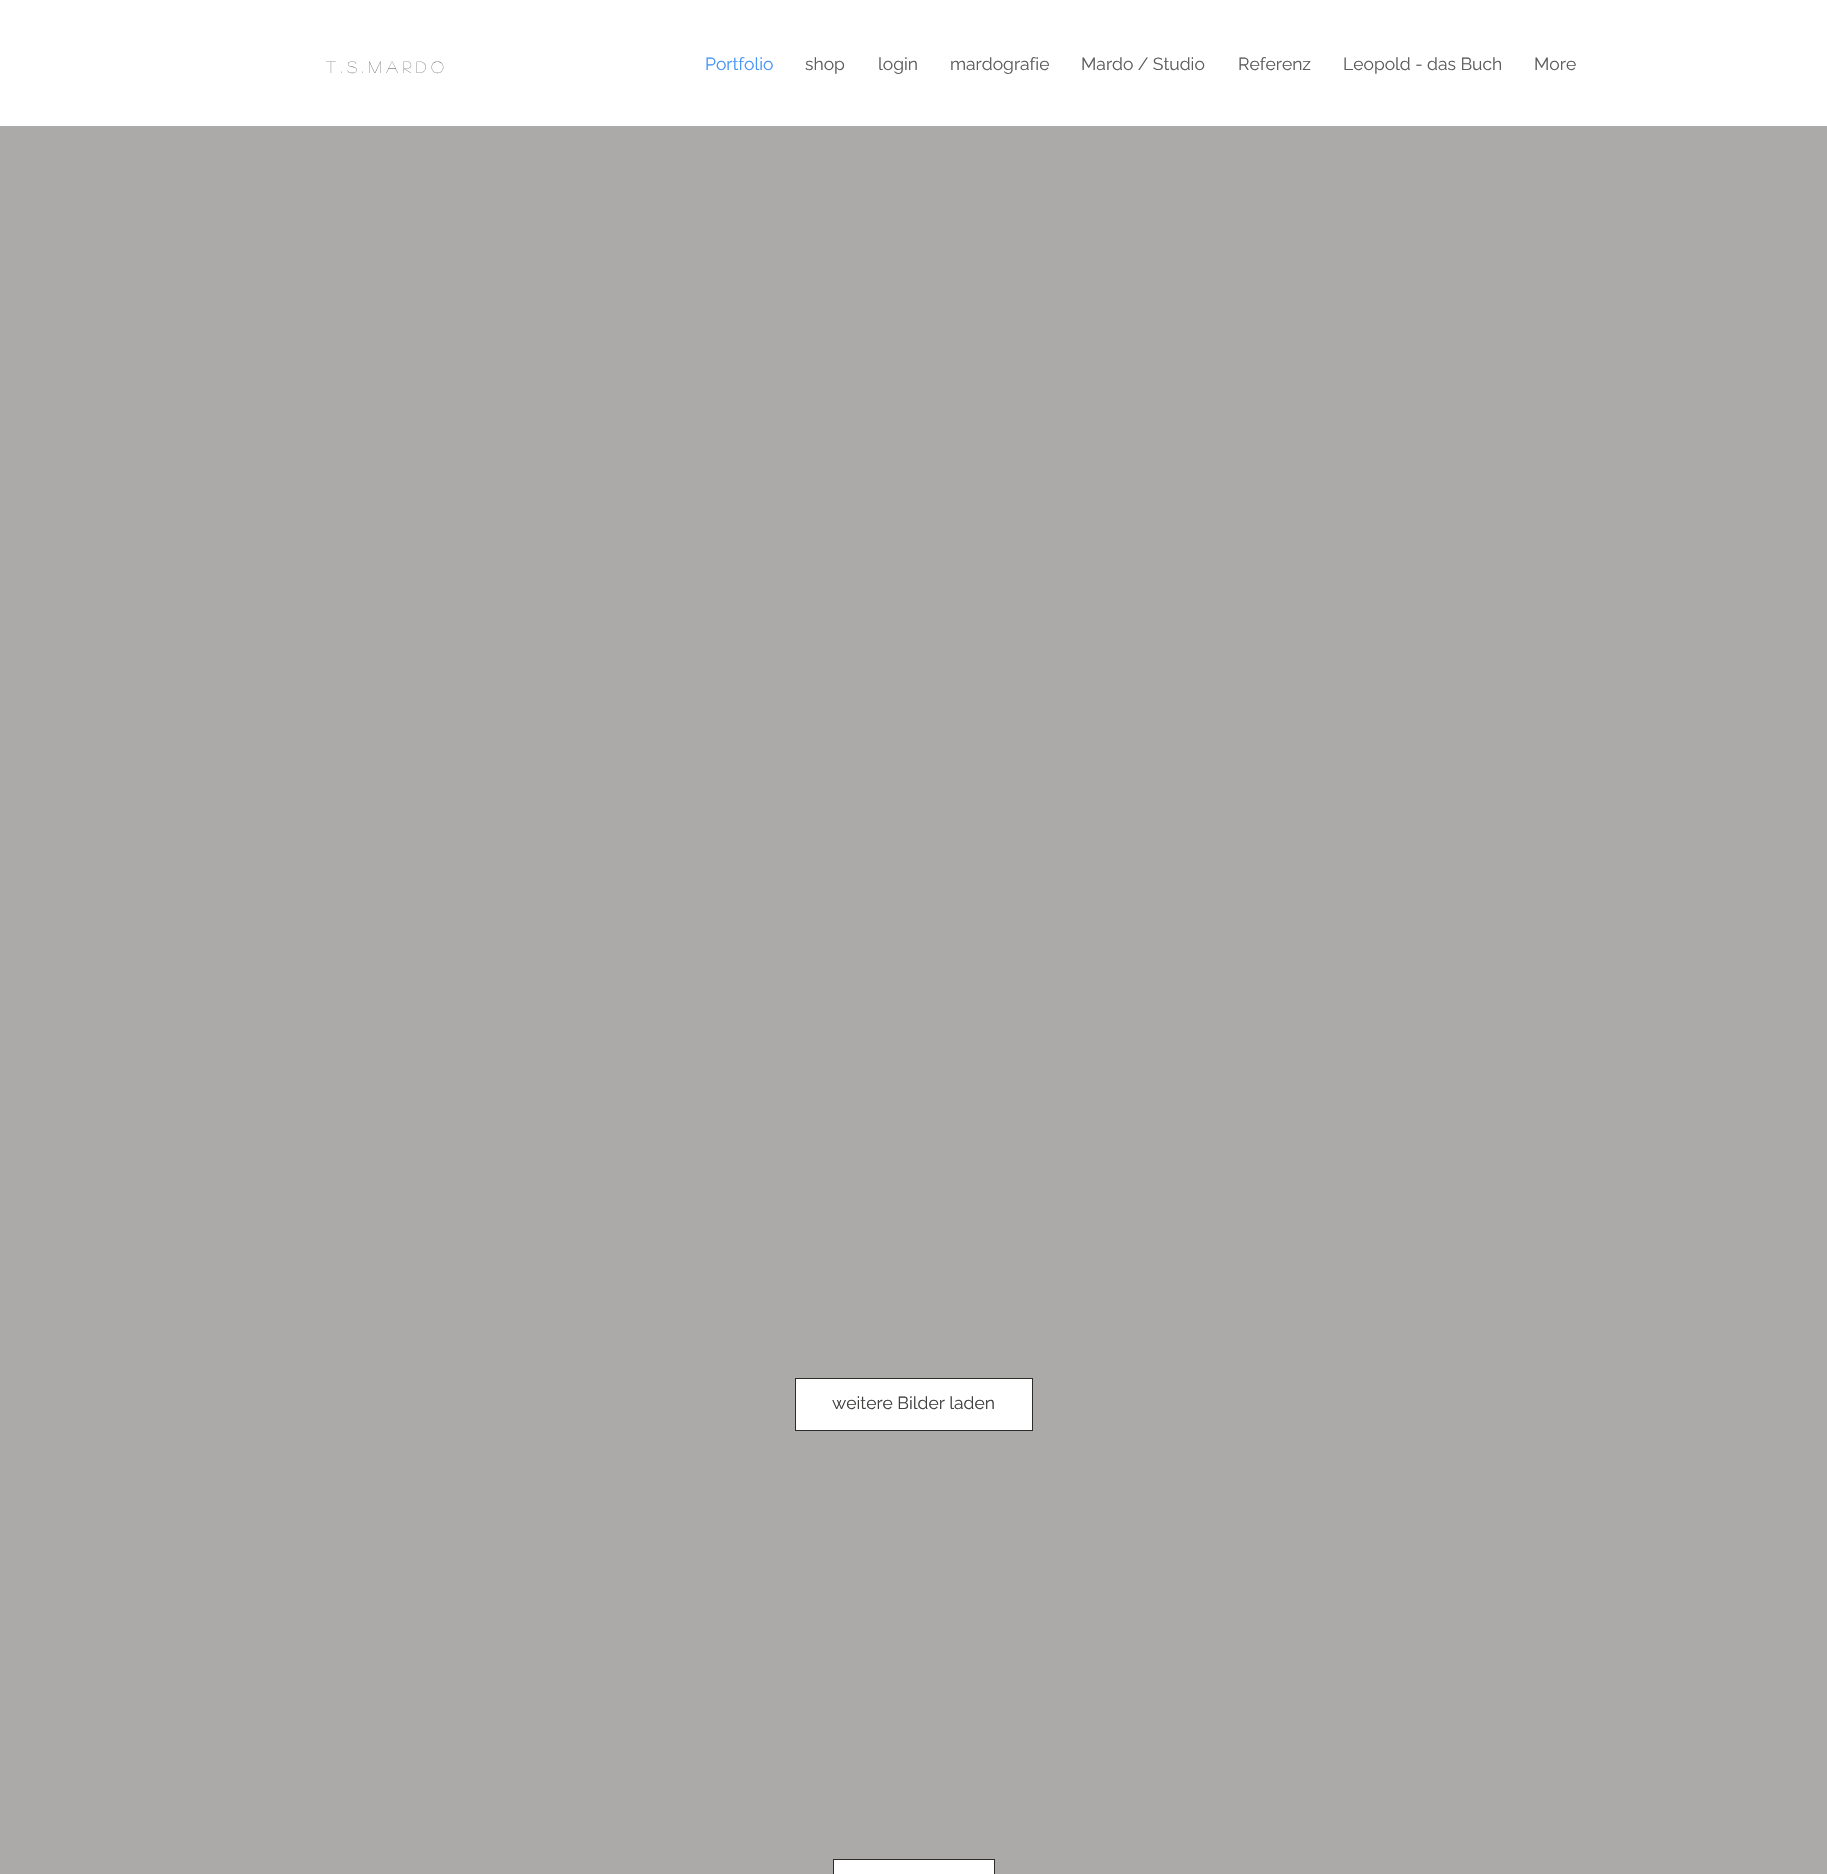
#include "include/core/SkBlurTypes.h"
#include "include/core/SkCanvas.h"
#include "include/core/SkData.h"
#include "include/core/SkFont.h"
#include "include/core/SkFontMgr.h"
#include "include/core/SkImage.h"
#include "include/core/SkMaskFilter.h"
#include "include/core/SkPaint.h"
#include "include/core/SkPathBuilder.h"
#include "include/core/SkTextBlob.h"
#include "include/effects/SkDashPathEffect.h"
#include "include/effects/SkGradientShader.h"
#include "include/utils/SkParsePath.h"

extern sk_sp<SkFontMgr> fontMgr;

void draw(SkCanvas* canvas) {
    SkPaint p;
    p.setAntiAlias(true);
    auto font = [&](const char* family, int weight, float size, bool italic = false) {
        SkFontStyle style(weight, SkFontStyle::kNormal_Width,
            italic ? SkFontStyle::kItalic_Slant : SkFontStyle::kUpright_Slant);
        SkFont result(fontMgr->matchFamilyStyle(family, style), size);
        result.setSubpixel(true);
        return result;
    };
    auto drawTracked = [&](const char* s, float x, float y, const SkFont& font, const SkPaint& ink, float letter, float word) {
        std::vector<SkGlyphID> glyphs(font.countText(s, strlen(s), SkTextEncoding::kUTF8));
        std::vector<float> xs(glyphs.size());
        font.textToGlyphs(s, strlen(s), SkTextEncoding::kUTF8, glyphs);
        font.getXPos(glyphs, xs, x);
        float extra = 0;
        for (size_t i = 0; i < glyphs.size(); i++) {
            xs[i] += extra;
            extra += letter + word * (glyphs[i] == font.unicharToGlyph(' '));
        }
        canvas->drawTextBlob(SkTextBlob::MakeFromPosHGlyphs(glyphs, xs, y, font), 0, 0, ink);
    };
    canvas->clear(0xFFACA9A9);
    p.setColor(0xFFFFFFFF);
    canvas->drawRect(SkRect::MakeLTRB(0, 0, 1827, 126), p);
    auto font1 = font("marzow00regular", 400, 16.25f);
    p.setColor(0xFF5E5D5D);
    drawTracked("T.S.MARDO", 326, 73, font1, p, 4.9f, 0);
    auto font2 = font("Raleway", 400, 17.5f);
    p.setColor(0xFF4595F7);
    canvas->drawString("Portfolio", 705, 70, font2, p);
    p.setColor(0xFF5E5D5D);
    {
        const struct { const char* s; float x, y; } items[] = {
            {"shop", 805, 70},
            {"login", 878, 70},
            {"mardografie", 950, 70},
            {"Mardo / Studio", 1081, 70},
            {"Referenz", 1238, 70},
            {"Leopold - das Buch", 1343, 70},
            {"More", 1534, 70},
        };
        for (auto [s, x, y] : items) {
            canvas->drawString(s, x, y, font2, p);
        }
    }
    p.setColor(0xFFFFFFFF);
    canvas->drawRect(SkRect::MakeLTRB(795.5f, 1378.5f, 1032.5f, 1430.5f), p);
    p.setStyle(SkPaint::kStroke_Style);
    p.setStrokeWidth(1);
    p.setColor(0xFF2C2C2B);
    canvas->drawRect(SkRect::MakeLTRB(795.5f, 1378.5f, 1032.5f, 1430.5f), p);
    p.setStyle(SkPaint::kFill_Style);
    p.setColor(0xFF414140);
    canvas->drawString("weitere Bilder laden", 832, 1409, font2, p);
    p.setColor(0xFFFFFFFF);
    canvas->drawRect(SkRect::MakeLTRB(833.5f, 1859.5f, 994.5f, 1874.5f), p);
    p.setStyle(SkPaint::kStroke_Style);
    p.setColor(0xFF2C2C2B);
    canvas->drawRect(SkRect::MakeLTRB(833.5f, 1859.5f, 994.5f, 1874.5f), p);
}
